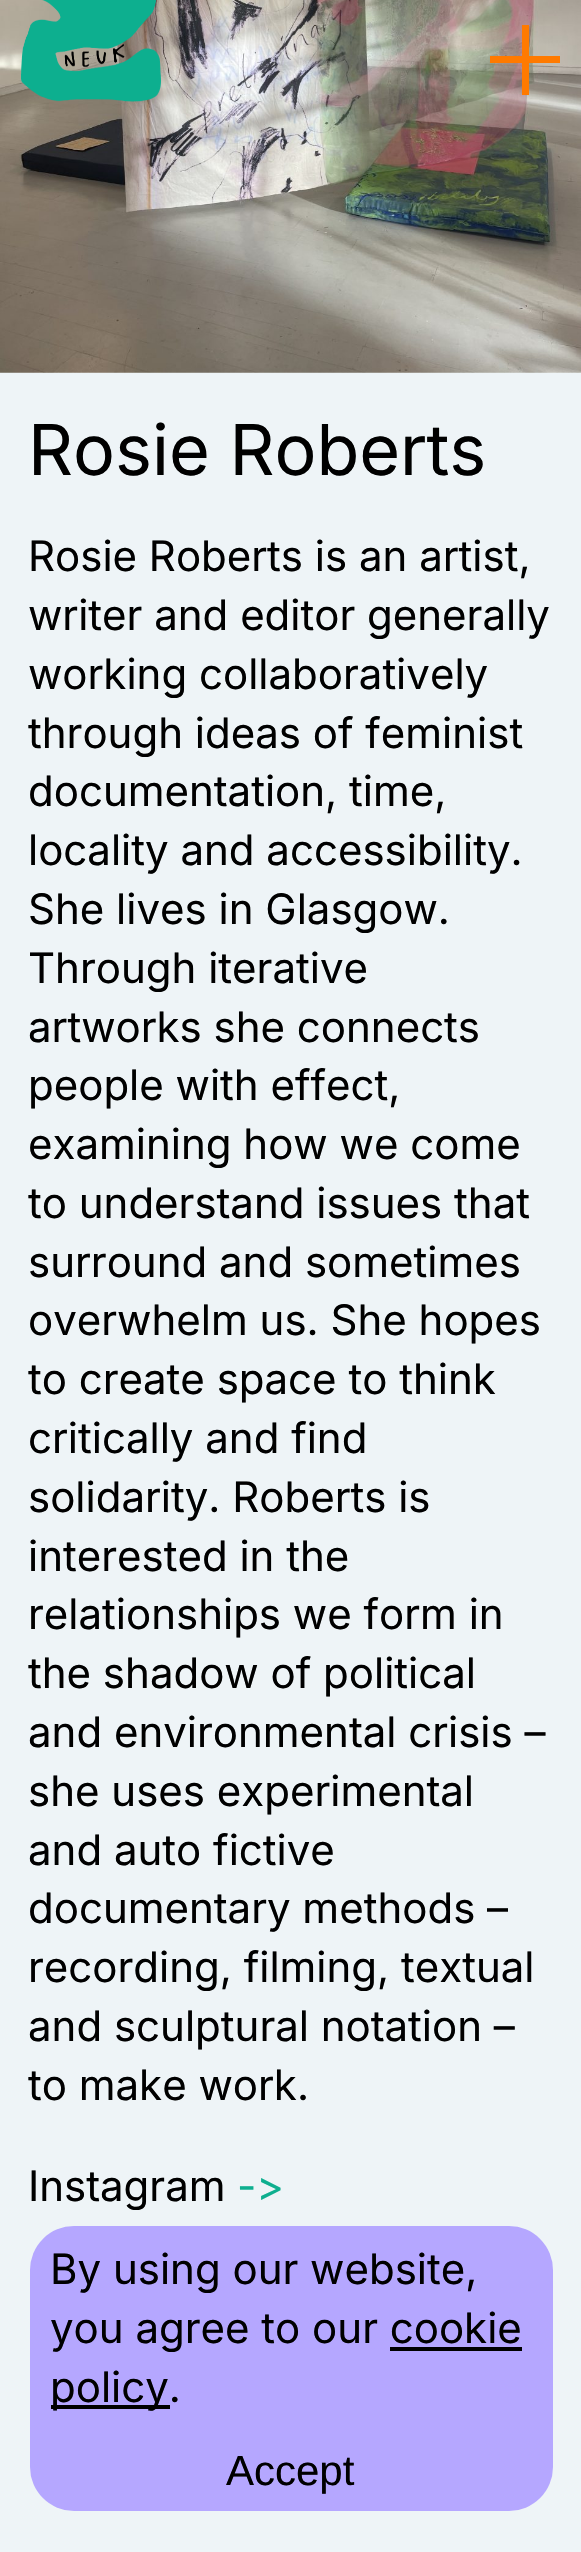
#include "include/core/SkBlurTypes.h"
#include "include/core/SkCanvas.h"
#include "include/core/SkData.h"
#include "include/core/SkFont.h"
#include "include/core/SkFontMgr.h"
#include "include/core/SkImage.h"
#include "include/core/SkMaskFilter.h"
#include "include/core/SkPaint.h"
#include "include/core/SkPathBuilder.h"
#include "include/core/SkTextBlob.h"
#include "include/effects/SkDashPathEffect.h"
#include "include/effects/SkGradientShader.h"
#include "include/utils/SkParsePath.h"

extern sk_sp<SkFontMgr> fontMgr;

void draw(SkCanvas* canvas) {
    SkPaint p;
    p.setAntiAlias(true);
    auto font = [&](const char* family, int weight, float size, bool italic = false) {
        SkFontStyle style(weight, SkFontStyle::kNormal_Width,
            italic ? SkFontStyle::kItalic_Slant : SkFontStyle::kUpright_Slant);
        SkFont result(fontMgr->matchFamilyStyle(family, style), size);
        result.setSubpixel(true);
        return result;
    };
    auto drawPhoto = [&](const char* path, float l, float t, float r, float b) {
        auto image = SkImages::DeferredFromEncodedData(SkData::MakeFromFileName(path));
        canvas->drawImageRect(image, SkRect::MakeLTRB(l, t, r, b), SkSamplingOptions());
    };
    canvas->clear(0xFFEEF4F7);
    drawPhoto("media/2.png", 0, 0, 581, 373);
    drawPhoto("media/1.png", 21, 0, 161, 102);
    p.setColor(0xFFFF7A00);
    canvas->drawRect(SkRect::MakeLTRB(490, 56, 560, 63), p);
    canvas->drawRect(SkRect::MakeLTRB(522, 25, 529, 95), p);
    auto font1 = font("Inter", 400, 70);
    p.setColor(0xFF000000);
    canvas->drawString("Rosie Roberts", 28, 475, font1, p);
    auto font2 = font("Inter", 400, 42);
    {
        const struct { const char* s; float x, y; } items[] = {
            {"Rosie Roberts is an artist,", 28, 571},
            {"writer and editor generally", 28, 630},
            {"working collaboratively", 28, 689},
            {"through ideas of feminist", 28, 748},
            {"documentation, time,", 28, 806},
            {"locality and accessibility.", 28, 865},
            {"She lives in Glasgow.", 28, 924},
            {"Through iterative", 28, 983},
            {"artworks she connects", 28, 1042},
            {"people with effect,", 28, 1100},
            {"examining how we come", 28, 1159},
            {"to understand issues that", 28, 1218},
            {"surround and sometimes", 28, 1277},
            {"overwhelm us. She hopes", 28, 1335},
            {"to create space to think", 28, 1394},
            {"critically and find", 28, 1453},
            {"solidarity. Roberts is", 28, 1512},
            {"interested in the", 28, 1571},
            {"relationships we form in", 28, 1629},
            {"the shadow of political", 28, 1688},
            {"and environmental crisis –", 28, 1747},
            {"she uses experimental", 28, 1806},
            {"and auto fictive", 28, 1865},
            {"documentary methods –", 28, 1923},
            {"recording, filming, textual", 28, 1982},
            {"and sculptural notation –", 28, 2041},
            {"to make work.", 28, 2100},
            {"Instagram", 28, 2201},
        };
        for (auto [s, x, y] : items) {
            canvas->drawString(s, x, y, font2, p);
        }
    }
    p.setColor(0xFF0EAF8F);
    canvas->drawString("->", 237, 2201, font2, p);
    p.setColor(0xFFB5A7FF);
    canvas->drawRoundRect(SkRect::MakeLTRB(30, 2226, 553, 2511), 44, 44, p);
    p.setColor(0xFF000000);
    canvas->drawString("By using our website,", 50, 2284, font2, p);
    canvas->drawString("you agree to our cookie", 50, 2343, font2, p);
    canvas->drawRect(SkRect::MakeLTRB(51, 2405, 170, 2409), p);
    canvas->drawString("policy.", 50, 2402, font2, p);
    canvas->drawRect(SkRect::MakeLTRB(390, 2347, 522, 2351), p);
    auto font3 = font("Liberation Sans", 400, 42);
    canvas->drawString("Accept", 226, 2485, font3, p);
}
